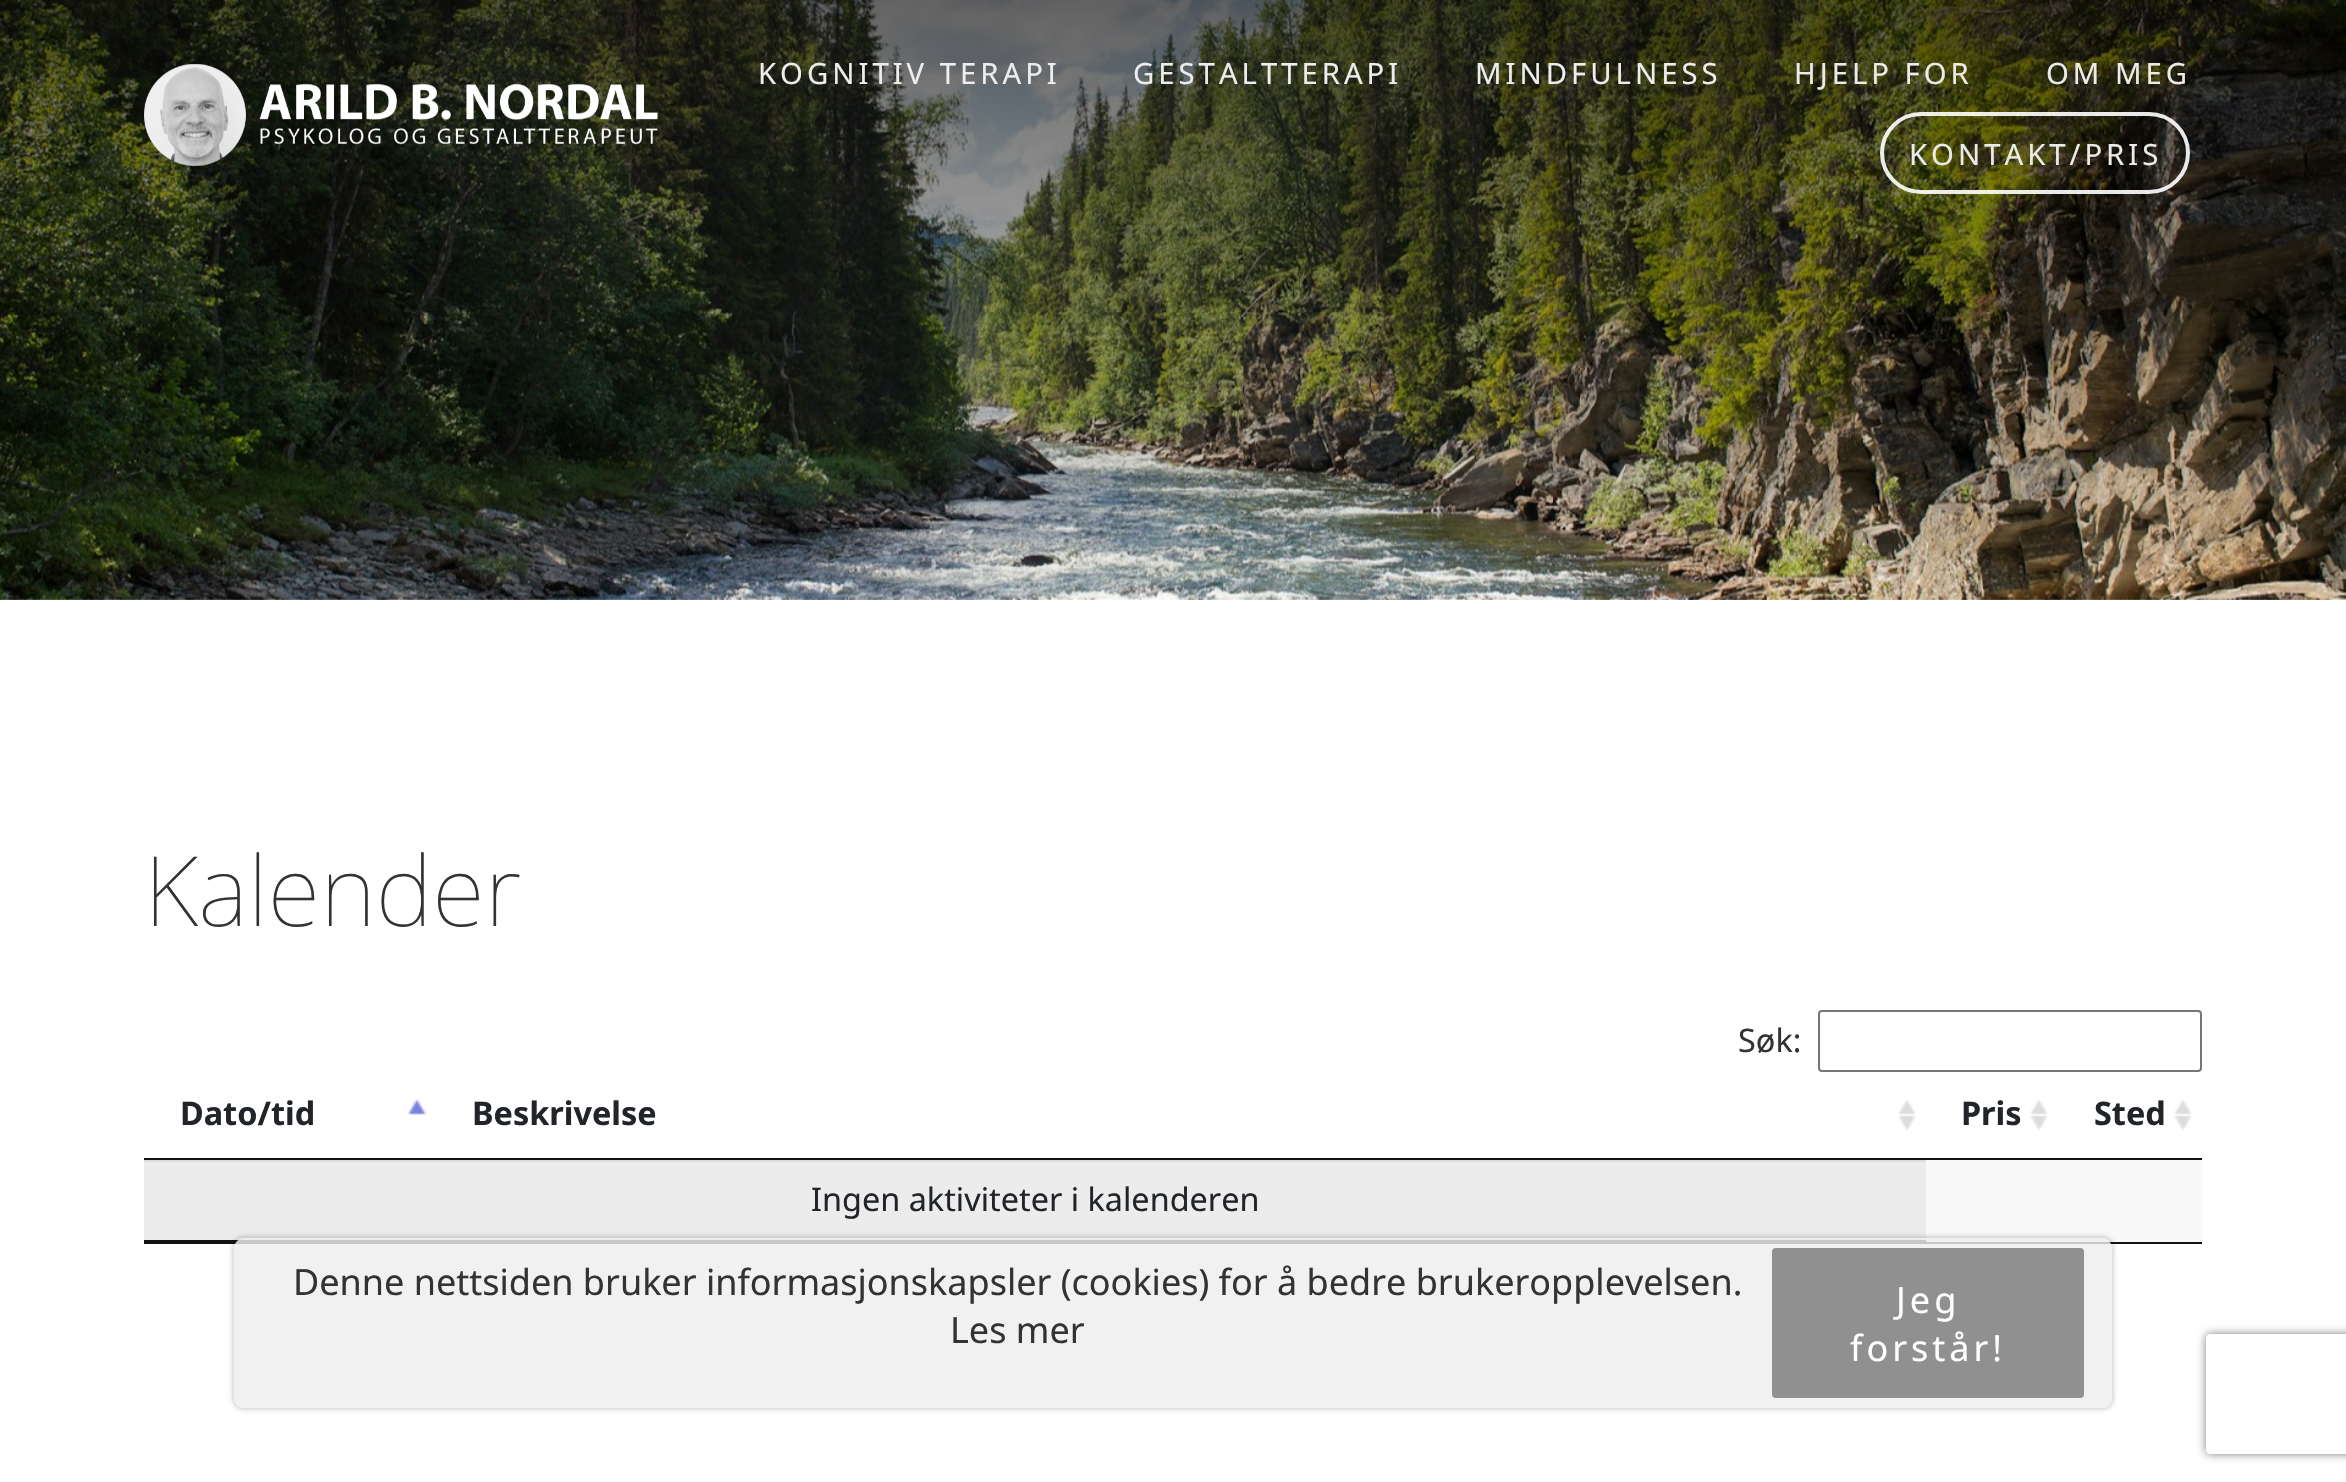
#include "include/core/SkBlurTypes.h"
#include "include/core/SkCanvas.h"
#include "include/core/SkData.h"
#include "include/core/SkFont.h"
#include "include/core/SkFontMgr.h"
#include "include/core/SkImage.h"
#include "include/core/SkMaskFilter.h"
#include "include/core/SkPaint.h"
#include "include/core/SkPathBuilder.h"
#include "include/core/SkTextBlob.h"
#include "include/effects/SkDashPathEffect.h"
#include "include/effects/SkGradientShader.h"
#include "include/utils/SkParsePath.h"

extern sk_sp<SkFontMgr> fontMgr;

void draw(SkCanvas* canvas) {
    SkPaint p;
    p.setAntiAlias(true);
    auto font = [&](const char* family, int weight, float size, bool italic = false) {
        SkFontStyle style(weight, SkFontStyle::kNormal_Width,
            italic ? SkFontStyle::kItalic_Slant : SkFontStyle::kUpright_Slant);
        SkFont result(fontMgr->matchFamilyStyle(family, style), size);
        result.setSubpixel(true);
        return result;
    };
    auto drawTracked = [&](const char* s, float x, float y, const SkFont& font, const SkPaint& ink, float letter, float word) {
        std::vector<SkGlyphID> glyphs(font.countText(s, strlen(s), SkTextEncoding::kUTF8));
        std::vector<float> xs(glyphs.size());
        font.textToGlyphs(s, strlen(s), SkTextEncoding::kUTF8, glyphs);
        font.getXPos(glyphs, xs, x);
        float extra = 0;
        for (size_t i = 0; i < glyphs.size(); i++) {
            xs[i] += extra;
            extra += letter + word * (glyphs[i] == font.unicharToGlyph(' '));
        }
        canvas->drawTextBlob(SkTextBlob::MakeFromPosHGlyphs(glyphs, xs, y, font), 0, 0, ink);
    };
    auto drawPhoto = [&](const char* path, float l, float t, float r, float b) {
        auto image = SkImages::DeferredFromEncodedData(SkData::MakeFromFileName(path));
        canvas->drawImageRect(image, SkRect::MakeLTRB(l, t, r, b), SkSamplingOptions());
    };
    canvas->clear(0xFFFFFFFF);
    drawPhoto("media/1.png", 0, 0, 2346, 600);
    {
        const SkColor colors[] = {0x99000000, 0x00000000};
        const float stops[] = {0, 1};
        const SkPoint ends[] = {{1173, 0}, {1173, 600}};
        p.setShader(SkGradientShader::MakeLinear(ends, colors, stops, 2, SkTileMode::kClamp));
        p.setAlpha(255);
    }
    canvas->drawRect(SkRect::MakeLTRB(0, 0, 2346, 578), p);
    drawPhoto("media/2.png", 144, 64, 658, 166);
    auto font1 = font("Noto Sans", 400, 29.25f);
    p.setShader(nullptr);
    p.setColor(0xFFEDEDED);
    {
        const struct { const char* s; float x, y; } items[] = {
            {"KOGNITIV TERAPI", 758, 84},
            {"GESTALTTERAPI", 1133, 84},
            {"MINDFULNESS", 1475, 84},
        };
        for (auto [s, x, y] : items) {
            drawTracked(s, x, y, font1, p, 4, 0);
        }
    }
    p.setColor(0xFFEBEBE7);
    drawTracked("HJELP FOR", 1794, 84, font1, p, 4, 0);
    drawTracked("OM MEG", 2046, 84, font1, p, 4, 0);
    p.setStyle(SkPaint::kStroke_Style);
    p.setStrokeWidth(4);
    p.setColor(0xE6FFFFFF);
    canvas->drawRoundRect(SkRect::MakeLTRB(1882, 114, 2188, 192), 39, 39, p);
    p.setStyle(SkPaint::kFill_Style);
    p.setColor(0xFFEBEBE7);
    drawTracked("KONTAKT/PRIS", 1909, 165, font1, p, 4, 0);
    auto font2 = font("Noto Sans", 100, 97);
    p.setColor(0xFF333333);
    canvas->drawString("Kalender", 144, 926, font2, p);
    auto font3 = font("Noto Sans", 400, 32.4f);
    canvas->drawString("Søk:", 1738, 1052, font3, p);
    p.setStyle(SkPaint::kStroke_Style);
    p.setStrokeWidth(2);
    p.setColor(0xFF767676);
    canvas->drawRoundRect(SkRect::MakeLTRB(1819, 1011, 2201, 1071), 3, 3, p);
    p.setStyle(SkPaint::kFill_Style);
    p.setColor(0xFF111111);
    canvas->drawRect(SkRect::MakeLTRB(144, 1242, 2202, 1244), p);
    drawPhoto("media/3.png", 407, 1099, 427, 1115);
    canvas->drawRect(SkRect::MakeLTRB(144, 1158, 2202, 1160), p);
    auto font4 = font("Noto Sans", 700, 32.4f);
    p.setColor(0xFF212529);
    canvas->drawString("Dato/tid", 180, 1125, font4, p);
    drawPhoto("media/4.png", 1898, 1099, 1916, 1131);
    canvas->drawString("Beskrivelse", 472, 1125, font4, p);
    drawPhoto("media/4.png", 2030, 1099, 2048, 1131);
    canvas->drawString("Pris", 1961, 1125, font4, p);
    drawPhoto("media/4.png", 2174, 1099, 2192, 1131);
    canvas->drawString("Sted", 2094, 1125, font4, p);
    {
        const struct { float l, t, r, b; SkColor color; } items[] = {
            {1926, 1160, 2202, 1242, 0xFFF9F9F9},
            {144, 1162, 1926, 1240, 0xFFECECEC},
            {144, 1160, 1926, 1162, 0xFFDDDDDD},
            {144, 1240, 1926, 1242, 0xFF111111},
        };
        for (auto [l, t, r, b, color] : items) {
            p.setColor(color);
            canvas->drawRect(SkRect::MakeLTRB(l, t, r, b), p);
        }
    }
    p.setColor(0xFF212529);
    canvas->drawString("Ingen aktiviteter i kalenderen", 811, 1211, font3, p);
    canvas->save();
    canvas->clipPath(SkPathBuilder(SkPathFillType::kEvenOdd).moveTo(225, 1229).lineTo(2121, 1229).lineTo(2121, 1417).lineTo(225, 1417).close().moveTo(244, 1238).lineTo(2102, 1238).cubicTo(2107.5f, 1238, 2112, 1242.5f, 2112, 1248).lineTo(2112, 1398).cubicTo(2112, 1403.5f, 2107.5f, 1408, 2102, 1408).lineTo(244, 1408).cubicTo(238.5f, 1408, 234, 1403.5f, 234, 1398).lineTo(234, 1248).cubicTo(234, 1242.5f, 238.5f, 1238, 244, 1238).close().detach(), true);
    p.setColor(0x29000000);
    p.setMaskFilter(SkMaskFilter::MakeBlur(kNormal_SkBlurStyle, 2));
    canvas->drawRoundRect(SkRect::MakeLTRB(232, 1236, 2114, 1410), 12, 12, p);
    p.setMaskFilter(nullptr);
    canvas->restore();
    p.setColor(0xD1EEEEEE);
    canvas->drawRoundRect(SkRect::MakeLTRB(234, 1238, 2112, 1408), 10, 10, p);
    auto font5 = font("Noto Sans", 400, 36);
    p.setColor(0xFF333333);
    canvas->drawString("Denne nettsiden bruker informasjonskapsler (cookies) for å bedre brukeropplevelsen.", 293, 1295, font5, p);
    canvas->drawString("Les mer", 950, 1343, font5, p);
    p.setColor(0xFF909090);
    canvas->drawRoundRect(SkRect::MakeLTRB(1772, 1248, 2084, 1398), 4, 4, p);
    p.setColor(0xFFFFFFFF);
    drawTracked("Jeg", 1896, 1313, font5, p, 4, 0);
    drawTracked("forstår!", 1850, 1361, font5, p, 4, 0);
    canvas->save();
    canvas->clipPath(SkPathBuilder(SkPathFillType::kEvenOdd).moveTo(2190, 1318).lineTo(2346, 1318).lineTo(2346, 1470).lineTo(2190, 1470).close().moveTo(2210, 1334).lineTo(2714, 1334).cubicTo(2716, 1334, 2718, 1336, 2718, 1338).lineTo(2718, 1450).cubicTo(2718, 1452, 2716, 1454, 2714, 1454).lineTo(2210, 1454).cubicTo(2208, 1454, 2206, 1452, 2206, 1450).lineTo(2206, 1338).cubicTo(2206, 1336, 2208, 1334, 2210, 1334).close().detach(), true);
    p.setColor(0xFF808080);
    p.setMaskFilter(SkMaskFilter::MakeBlur(kNormal_SkBlurStyle, 5));
    canvas->drawRoundRect(SkRect::MakeLTRB(2206, 1334, 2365, 1454), 4, 4, p);
    p.setMaskFilter(nullptr);
    canvas->restore();
}
